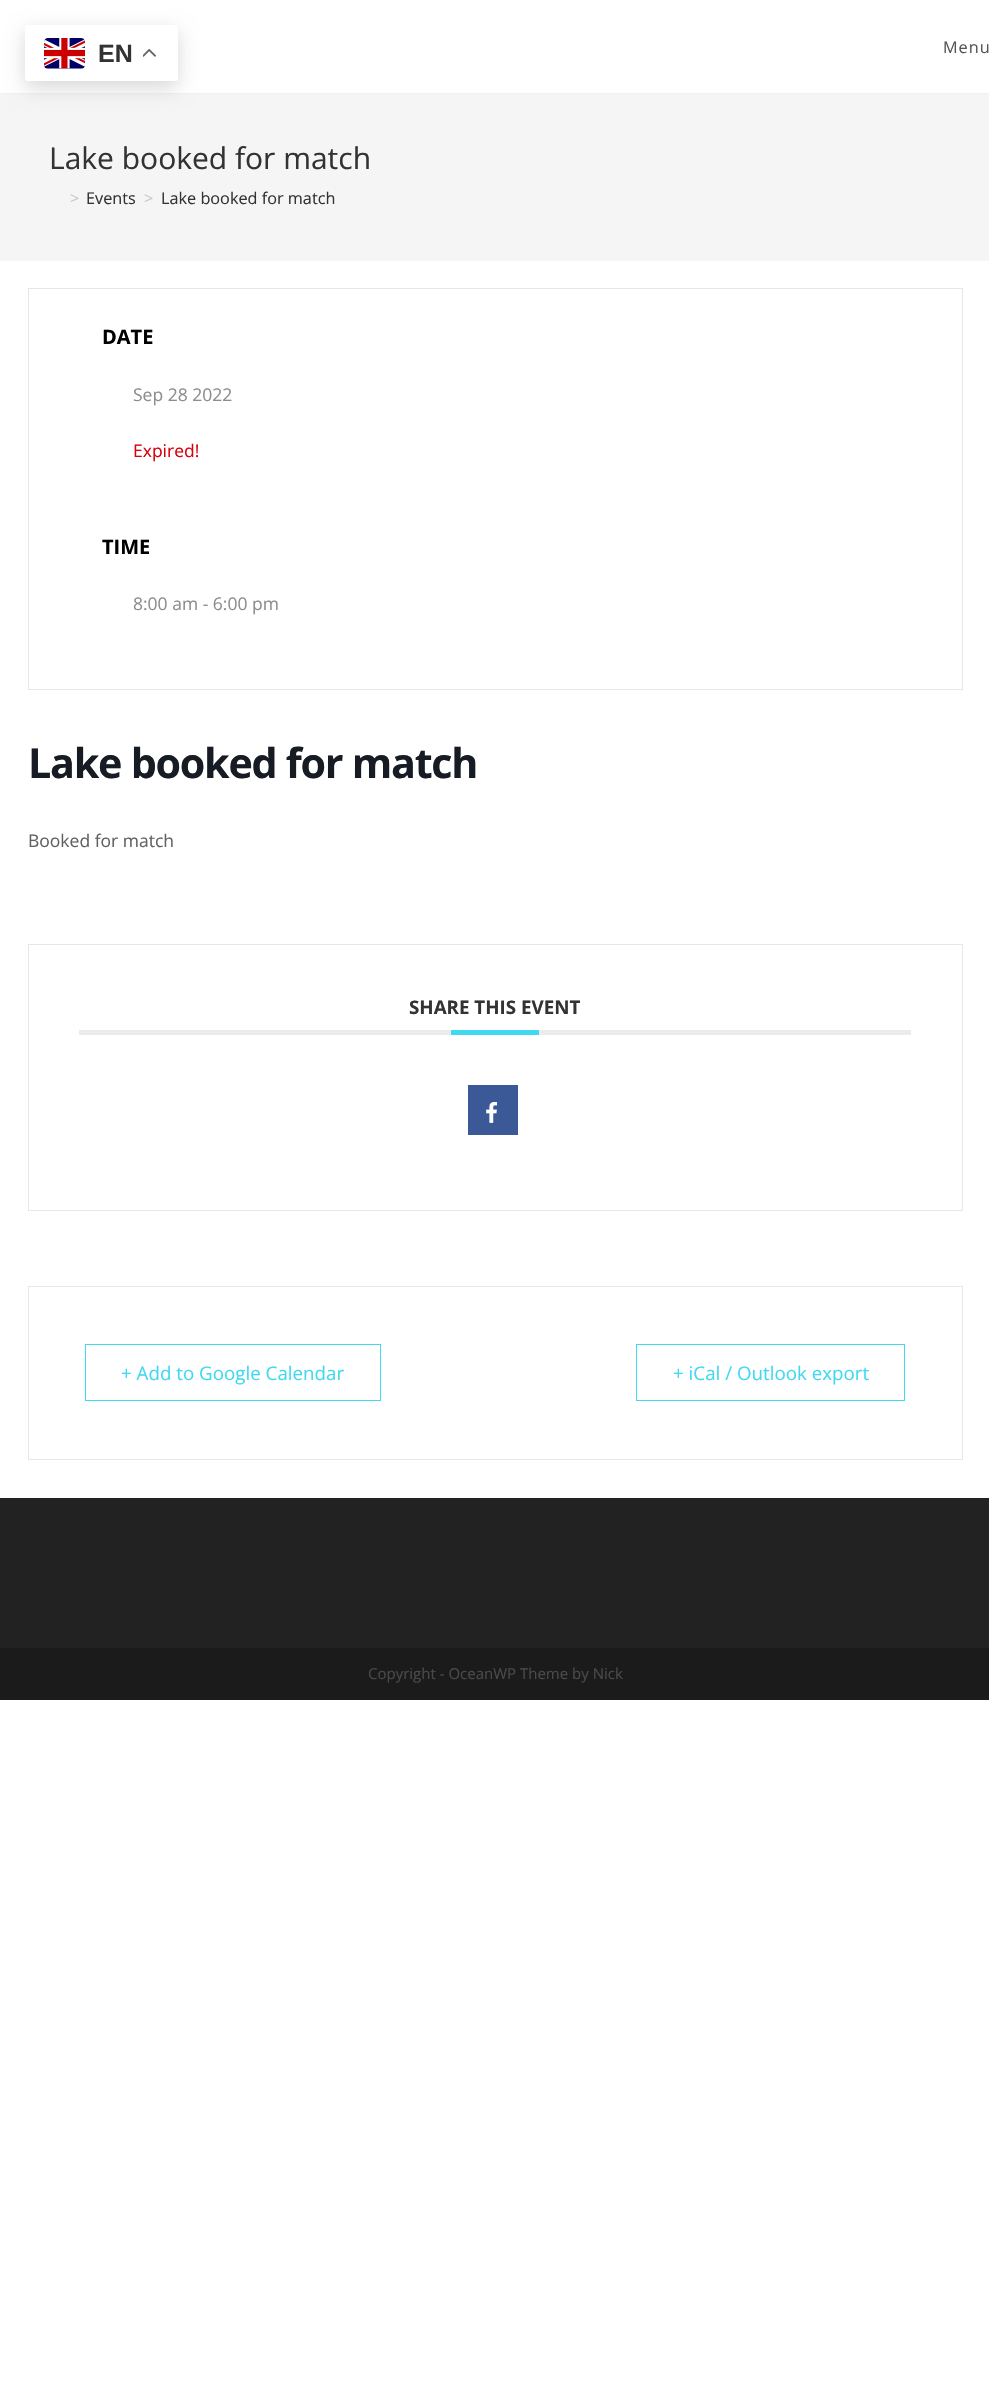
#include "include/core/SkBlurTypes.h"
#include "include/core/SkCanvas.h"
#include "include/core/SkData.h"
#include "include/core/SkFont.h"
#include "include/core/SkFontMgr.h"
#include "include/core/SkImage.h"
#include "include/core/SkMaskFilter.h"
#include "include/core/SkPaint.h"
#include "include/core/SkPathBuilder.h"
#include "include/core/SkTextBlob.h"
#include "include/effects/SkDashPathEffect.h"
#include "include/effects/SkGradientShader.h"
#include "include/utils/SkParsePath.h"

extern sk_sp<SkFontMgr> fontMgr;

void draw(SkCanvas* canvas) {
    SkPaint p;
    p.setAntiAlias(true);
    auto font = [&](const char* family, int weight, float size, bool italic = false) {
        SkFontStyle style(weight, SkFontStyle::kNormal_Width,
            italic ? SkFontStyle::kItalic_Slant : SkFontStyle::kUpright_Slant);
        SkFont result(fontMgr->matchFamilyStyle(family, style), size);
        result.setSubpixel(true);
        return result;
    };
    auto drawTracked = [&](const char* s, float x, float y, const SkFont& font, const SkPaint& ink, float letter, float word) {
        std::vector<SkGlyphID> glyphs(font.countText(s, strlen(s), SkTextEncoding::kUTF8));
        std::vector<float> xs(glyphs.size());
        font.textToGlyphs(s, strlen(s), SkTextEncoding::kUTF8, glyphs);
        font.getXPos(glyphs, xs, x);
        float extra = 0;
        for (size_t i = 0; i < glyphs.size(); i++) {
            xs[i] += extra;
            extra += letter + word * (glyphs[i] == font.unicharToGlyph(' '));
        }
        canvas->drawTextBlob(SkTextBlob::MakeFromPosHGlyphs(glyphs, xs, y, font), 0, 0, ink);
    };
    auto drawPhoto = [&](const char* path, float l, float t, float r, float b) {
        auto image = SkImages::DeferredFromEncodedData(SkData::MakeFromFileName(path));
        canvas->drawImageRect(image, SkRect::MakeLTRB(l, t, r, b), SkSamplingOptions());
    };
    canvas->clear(0xFFFFFFFF);
    p.setColor(0xFFF1F1F1);
    canvas->drawRect(SkRect::MakeLTRB(0, 93, 989, 94), p);
    auto font1 = font("Open Sans", 400, 16.25f);
    p.setColor(0xFF555555);
    drawTracked("Menu", 943, 53, font1, p, 1, 0);
    p.setColor(0xFFF5F5F5);
    canvas->drawRect(SkRect::MakeLTRB(0, 94, 989, 261), p);
    auto font2 = font("Open Sans", 400, 30);
    p.setColor(0xFF333333);
    canvas->drawString("Lake booked for match", 49, 169, font2, p);
    p.setColor(0xFFC6C6C6);
    canvas->drawString(">", 70, 204, font1, p);
    p.setColor(0xFF333333);
    canvas->drawString("Events", 86, 204, font1, p);
    p.setColor(0xFFC6C6C6);
    canvas->drawString(">", 144, 204, font1, p);
    p.setColor(0xFF333333);
    canvas->drawString("Lake booked for match", 161, 204, font1, p);
    p.setStyle(SkPaint::kStroke_Style);
    p.setStrokeWidth(1);
    p.setColor(0xFFE6E6E6);
    canvas->drawRect(SkRect::MakeLTRB(28.5f, 288.5f, 962.5f, 689.5f), p);
    auto font3 = font("Open Sans", 700, 20);
    p.setStyle(SkPaint::kFill_Style);
    p.setColor(0xFF000000);
    canvas->drawString("DATE", 102, 344, font3, p);
    auto font4 = font("Open Sans", 400, 17.5f);
    p.setColor(0xFF8D8D8D);
    canvas->drawString("Sep 28 2022", 133, 401, font4, p);
    p.setColor(0xFFD8000C);
    canvas->drawString("Expired!", 133, 457, font4, p);
    p.setColor(0xFF000000);
    canvas->drawString("TIME", 102, 554, font3, p);
    p.setColor(0xFF8D8D8D);
    canvas->drawString("8:00 am - 6:00 pm", 133, 610, font4, p);
    auto font5 = font("Open Sans", 700, 41.25f);
    p.setColor(0xFF171C24);
    drawTracked("Lake booked for match", 28, 778, font5, p, -1.25f, 0);
    p.setColor(0xFF616161);
    canvas->drawString("Booked for match", 28, 847, font4, p);
    p.setStyle(SkPaint::kStroke_Style);
    p.setColor(0xFFE6E7E8);
    canvas->drawRect(SkRect::MakeLTRB(28.5f, 944.5f, 962.5f, 1210.5f), p);
    p.setStyle(SkPaint::kFill_Style);
    p.setColor(0xFFEBEBEB);
    canvas->drawRect(SkRect::MakeLTRB(79, 1030, 911, 1035), p);
    auto font6 = font("Open Sans", 700, 18.75f);
    p.setColor(0xFF333333);
    canvas->drawString("SHARE THIS EVENT", 409, 1014, font6, p);
    p.setColor(0xFF40D9F1);
    canvas->drawRect(SkRect::MakeLTRB(451, 1030, 539, 1035), p);
    p.setColor(0xFF3B5996);
    canvas->drawRect(SkRect::MakeLTRB(468, 1085, 518, 1135), p);
    drawPhoto("media/1.png", 486, 1102, 498, 1123);
    p.setStyle(SkPaint::kStroke_Style);
    p.setColor(0xFFE6E7E8);
    canvas->drawRect(SkRect::MakeLTRB(28.5f, 1286.5f, 962.5f, 1459.5f), p);
    p.setColor(0xFF40D9F1);
    canvas->drawRect(SkRect::MakeLTRB(85.5f, 1344.5f, 380.5f, 1400.5f), p);
    auto font7 = font("Open Sans", 400, 18.75f);
    p.setStyle(SkPaint::kFill_Style);
    canvas->drawString("+ Add to Google Calendar", 121, 1380, font7, p);
    p.setStyle(SkPaint::kStroke_Style);
    canvas->drawRect(SkRect::MakeLTRB(636.5f, 1344.5f, 904.5f, 1400.5f), p);
    p.setStyle(SkPaint::kFill_Style);
    canvas->drawString("+ iCal / Outlook export", 673, 1380, font7, p);
    p.setColor(0xFF222222);
    canvas->drawRect(SkRect::MakeLTRB(0, 1498, 989, 1648), p);
    p.setColor(0xFF1B1B1B);
    canvas->drawRect(SkRect::MakeLTRB(0, 1648, 989, 1700), p);
    auto font8 = font("Open Sans", 400, 15);
    p.setColor(0xFF4A4A4A);
    canvas->drawString("Copyright - OceanWP Theme by Nick", 368, 1679, font8, p);
    p.setColor(0x26000000);
    p.setMaskFilter(SkMaskFilter::MakeBlur(kNormal_SkBlurStyle, 9.5f));
    canvas->drawRoundRect(SkRect::MakeLTRB(25, 31, 178, 88), 2.5f, 2.5f, p);
    p.setMaskFilter(nullptr);
    p.setColor(0xFFFFFFFF);
    canvas->drawRoundRect(SkRect::MakeLTRB(25, 25, 178, 81), 2.5f, 2.5f, p);
    drawPhoto("media/2.png", 44, 38, 85, 69);
    auto font9 = font("Liberation Sans", 700, 25);
    p.setColor(0xFF333333);
    canvas->drawString("EN", 98, 62, font9, p);
    drawPhoto("media/3.png", 143, 48, 156, 57);
}
